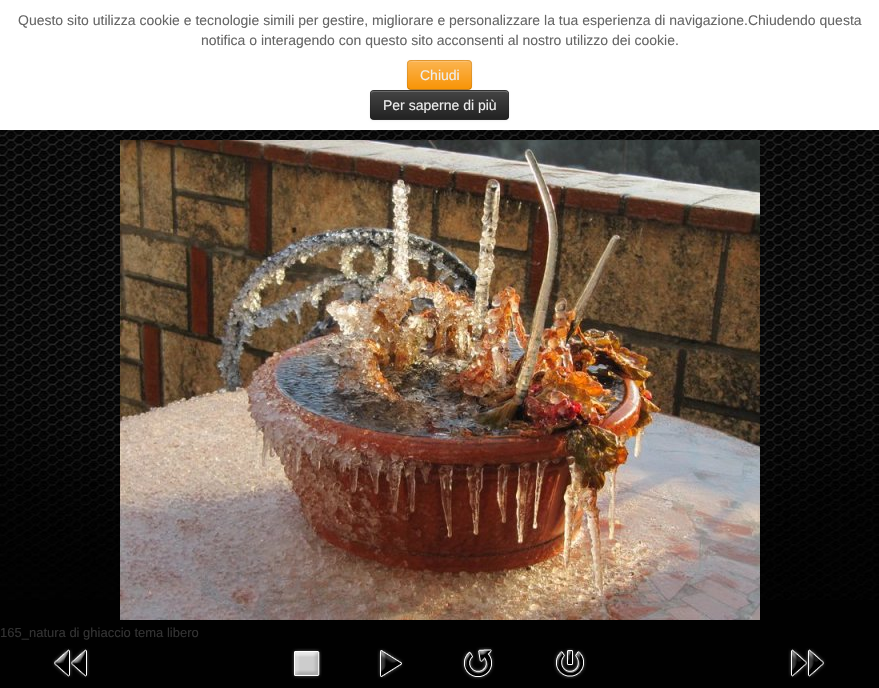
#include "include/core/SkBlurTypes.h"
#include "include/core/SkCanvas.h"
#include "include/core/SkData.h"
#include "include/core/SkFont.h"
#include "include/core/SkFontMgr.h"
#include "include/core/SkImage.h"
#include "include/core/SkMaskFilter.h"
#include "include/core/SkPaint.h"
#include "include/core/SkPathBuilder.h"
#include "include/core/SkTextBlob.h"
#include "include/effects/SkDashPathEffect.h"
#include "include/effects/SkGradientShader.h"
#include "include/utils/SkParsePath.h"

extern sk_sp<SkFontMgr> fontMgr;

void draw(SkCanvas* canvas) {
    SkPaint p;
    p.setAntiAlias(true);
    auto font = [&](const char* family, int weight, float size, bool italic = false) {
        SkFontStyle style(weight, SkFontStyle::kNormal_Width,
            italic ? SkFontStyle::kItalic_Slant : SkFontStyle::kUpright_Slant);
        SkFont result(fontMgr->matchFamilyStyle(family, style), size);
        result.setSubpixel(true);
        return result;
    };
    auto drawPhoto = [&](const char* path, float l, float t, float r, float b) {
        auto image = SkImages::DeferredFromEncodedData(SkData::MakeFromFileName(path));
        canvas->drawImageRect(image, SkRect::MakeLTRB(l, t, r, b), SkSamplingOptions());
    };
    canvas->clear(0xFF010101);
    drawPhoto("media/1.png", 0, 130, 879, 600);
    p.setColor(0xFFFFFFFF);
    canvas->drawRect(SkRect::MakeLTRB(0, 0, 879, 130), p);
    auto font1 = font("Liberation Sans", 400, 14);
    p.setColor(0xFF666666);
    canvas->drawString("Questo sito utilizza cookie e tecnologie simili per gestire, migliorare e personalizzare la tua esperienza di navigazione.Chiudendo questa", 18, 25, font1, p);
    canvas->drawString("notifica o interagendo con questo sito acconsenti al nostro utilizzo dei cookie.", 201, 45, font1, p);
    p.setColor(0x0D000000);
    p.setMaskFilter(SkMaskFilter::MakeBlur(kNormal_SkBlurStyle, 1));
    canvas->drawRoundRect(SkRect::MakeLTRB(407, 61, 472, 91), 4, 4, p);
    p.setMaskFilter(nullptr);
    p.setColor(0xFFFAA732);
    canvas->drawRoundRect(SkRect::MakeLTRB(407, 60, 472, 90), 4, 4, p);
    canvas->save();
    canvas->clipPath(SkPathBuilder().moveTo(411, 60).lineTo(468, 60).cubicTo(470, 60, 472, 62, 472, 64).lineTo(472, 86).cubicTo(472, 88, 470, 90, 468, 90).lineTo(411, 90).cubicTo(409, 90, 407, 88, 407, 86).lineTo(407, 64).cubicTo(407, 62, 409, 60, 411, 60).close().detach(), true);
    {
        const SkColor colors[] = {0xFFFBB450, 0xFFF89406};
        const float stops[] = {0, 1};
        const SkPoint ends[] = {{440, 61}, {440, 89}};
        p.setShader(SkGradientShader::MakeLinear(ends, colors, stops, 2, SkTileMode::kClamp));
        p.setAlpha(255);
    }
    canvas->drawRect(SkRect::MakeLTRB(407, 61, 472, 89), p);
    canvas->restore();
    p.setShader(nullptr);
    p.setColor(0xFFFCC272);
    canvas->drawPath(SkPathBuilder().moveTo(411, 62).lineTo(468, 62).cubicTo(470, 62, 471, 63, 471, 65).cubicTo(471, 59, 463, 61, 458, 61).lineTo(420, 61).cubicTo(416, 61, 408, 59, 408, 65).cubicTo(408, 63, 409, 62, 411, 62).close().detach(), p);
    p.setStyle(SkPaint::kStroke_Style);
    p.setStrokeWidth(1);
    p.setColor(0x40000000);
    canvas->drawPath(SkPathBuilder().moveTo(470.5f, 88.5f).lineTo(468.5f, 89.5f).lineTo(410.5f, 89.5f).lineTo(408.5f, 88.5f).detach(), p);
    p.setColor(0x1A000000);
    canvas->drawPath(SkPathBuilder().moveTo(408.5f, 88.5f).cubicTo(406.5f, 86.5f, 407.5f, 78, 407.5f, 75).cubicTo(407.5f, 59.5f, 405, 60.5f, 420.5f, 60.5f).lineTo(458.5f, 60.5f).cubicTo(474, 60.5f, 471.5f, 59.5f, 471.5f, 75).cubicTo(471.5f, 78, 472.5f, 86.5f, 470.5f, 88.5f).detach(), p);
    p.setStyle(SkPaint::kFill_Style);
    p.setColor(0xFFEEEEEE);
    canvas->drawString("Chiudi", 420, 80, font1, p);
    p.setColor(0x0D000000);
    p.setMaskFilter(SkMaskFilter::MakeBlur(kNormal_SkBlurStyle, 1));
    canvas->drawRoundRect(SkRect::MakeLTRB(370, 91, 509, 121), 4, 4, p);
    p.setMaskFilter(nullptr);
    p.setColor(0xFF363636);
    canvas->drawRoundRect(SkRect::MakeLTRB(370, 90, 509, 120), 4, 4, p);
    canvas->save();
    canvas->clipPath(SkPathBuilder().moveTo(374, 90).lineTo(505, 90).cubicTo(507, 90, 509, 92, 509, 94).lineTo(509, 116).cubicTo(509, 118, 507, 120, 505, 120).lineTo(374, 120).cubicTo(372, 120, 370, 118, 370, 116).lineTo(370, 94).cubicTo(370, 92, 372, 90, 374, 90).close().detach(), true);
    {
        const SkColor colors[] = {0xFF444444, 0xFF222222};
        const float stops[] = {0, 1};
        const SkPoint ends[] = {{440, 91}, {440, 119}};
        p.setShader(SkGradientShader::MakeLinear(ends, colors, stops, 2, SkTileMode::kClamp));
        p.setAlpha(255);
    }
    canvas->drawRect(SkRect::MakeLTRB(370, 91, 509, 119), p);
    canvas->restore();
    p.setShader(nullptr);
    p.setColor(0xFF696969);
    canvas->drawPath(SkPathBuilder().moveTo(374, 92).lineTo(505, 92).cubicTo(507, 92, 508, 93, 508, 95).cubicTo(508, 93, 508, 91, 506, 91).lineTo(373, 91).cubicTo(371, 91, 371, 93, 371, 95).cubicTo(371, 93, 372, 92, 374, 92).close().detach(), p);
    p.setStyle(SkPaint::kStroke_Style);
    p.setColor(0x40000000);
    canvas->drawPath(SkPathBuilder().moveTo(507.5f, 118.5f).cubicTo(507, 119, 506, 119.5f, 505, 119.5f).lineTo(374, 119.5f).cubicTo(373, 119.5f, 372, 119, 371.5f, 118.5f).detach(), p);
    p.setColor(0x1A000000);
    canvas->drawPath(SkPathBuilder().moveTo(371.5f, 118.5f).cubicTo(369.5f, 116.5f, 370.5f, 108, 370.5f, 105).lineTo(370.5f, 97.5f).cubicTo(370.5f, 95, 370, 90.5f, 374, 90.5f).lineTo(505, 90.5f).cubicTo(509, 90.5f, 508.5f, 95, 508.5f, 97.5f).lineTo(508.5f, 105).cubicTo(508.5f, 108, 509.5f, 116.5f, 507.5f, 118.5f).detach(), p);
    p.setStyle(SkPaint::kFill_Style);
    p.setColor(0xFFEEEEEE);
    canvas->drawString("Per saperne di più", 383, 110, font1, p);
    drawPhoto("media/2.png", 120, 140, 760, 620);
    auto font2 = font("Liberation Sans", 400, 13);
    p.setColor(0xFF333333);
    canvas->drawString("165_natura di ghiaccio tema libero", 0, 637, font2, p);
    drawPhoto("media/3.png", 52, 648, 90, 678);
    drawPhoto("media/4.png", 291, 648, 322, 679);
    drawPhoto("media/5.png", 377, 648, 404, 679);
    drawPhoto("media/6.png", 461, 647, 495, 680);
    drawPhoto("media/7.png", 553, 648, 587, 679);
    drawPhoto("media/8.png", 788, 648, 826, 678);
}
